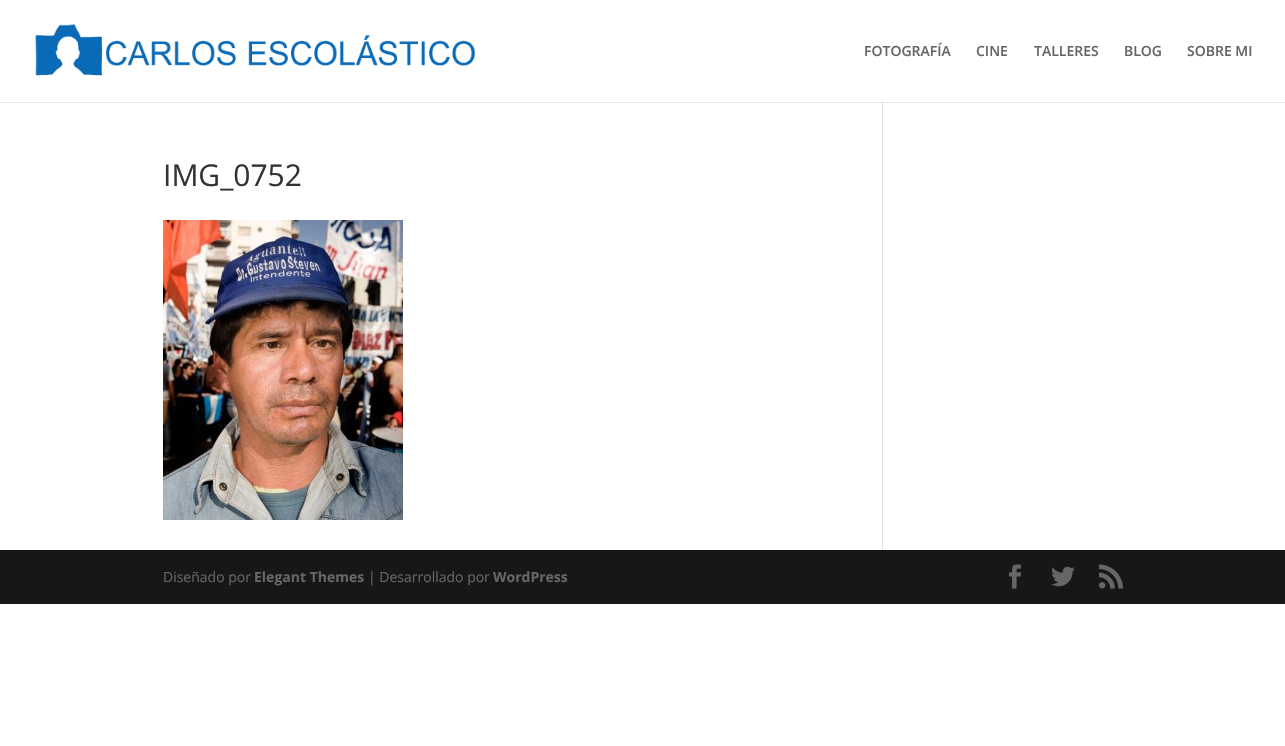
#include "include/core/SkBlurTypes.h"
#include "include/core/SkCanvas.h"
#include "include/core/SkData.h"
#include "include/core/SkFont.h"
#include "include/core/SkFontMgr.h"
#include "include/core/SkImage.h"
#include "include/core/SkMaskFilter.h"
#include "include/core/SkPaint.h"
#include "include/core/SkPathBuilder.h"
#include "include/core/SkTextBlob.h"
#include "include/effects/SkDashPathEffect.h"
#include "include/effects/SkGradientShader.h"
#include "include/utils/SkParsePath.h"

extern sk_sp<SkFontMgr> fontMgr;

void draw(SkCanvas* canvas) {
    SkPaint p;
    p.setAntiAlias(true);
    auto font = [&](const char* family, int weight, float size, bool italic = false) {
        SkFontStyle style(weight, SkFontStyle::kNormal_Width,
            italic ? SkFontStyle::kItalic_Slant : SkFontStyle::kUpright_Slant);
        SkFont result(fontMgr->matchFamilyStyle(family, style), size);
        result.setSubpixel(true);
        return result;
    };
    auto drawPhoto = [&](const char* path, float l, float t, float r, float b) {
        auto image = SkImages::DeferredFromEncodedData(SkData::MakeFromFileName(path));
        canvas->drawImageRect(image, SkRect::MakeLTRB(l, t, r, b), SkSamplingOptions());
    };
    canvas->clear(0xFFFFFFFF);
    p.setColor(0xFFE6E6E6);
    canvas->drawRect(SkRect::MakeLTRB(0, 102, 1285, 103), p);
    drawPhoto("media/1.png", 35, 24, 476, 76);
    auto font1 = font("Open Sans", 600, 14);
    p.setColor(0xFF666666);
    {
        const struct { const char* s; float x, y; } items[] = {
            {"FOTOGRAFÍA", 864, 56},
            {"CINE", 976, 56},
            {"TALLERES", 1034, 56},
            {"BLOG", 1124, 56},
            {"SOBRE MI", 1187, 56},
        };
        for (auto [s, x, y] : items) {
            canvas->drawString(s, x, y, font1, p);
        }
    }
    auto font2 = font("Open Sans", 400, 30);
    p.setColor(0xFF333333);
    canvas->drawString("IMG_0752", 163, 186, font2, p);
    drawPhoto("media/2.png", 163, 220, 403, 520);
    {
        const struct { float l, t, r, b; SkColor color; } items[] = {
            {882, 102, 883, 550, 0xFFE2E2E2},
            {882, 102, 883, 103, 0xFFCBCBCB},
            {0, 550, 1285, 604, 0xFF171717},
        };
        for (auto [l, t, r, b, color] : items) {
            p.setColor(color);
            canvas->drawRect(SkRect::MakeLTRB(l, t, r, b), p);
        }
    }
    auto font3 = font("Open Sans", 400, 14);
    p.setColor(0xFF666666);
    canvas->drawString("Diseñado por", 163, 582, font3, p);
    auto font4 = font("Open Sans", 700, 14);
    canvas->drawString("Elegant Themes", 254, 582, font4, p);
    canvas->drawString("| Desarrollado por", 368, 582, font3, p);
    canvas->drawString("WordPress", 493, 582, font4, p);
    drawPhoto("media/3.png", 1009, 564, 1021, 589);
    drawPhoto("media/4.png", 1051, 566, 1075, 587);
    drawPhoto("media/5.png", 1099, 564, 1123, 589);
}
